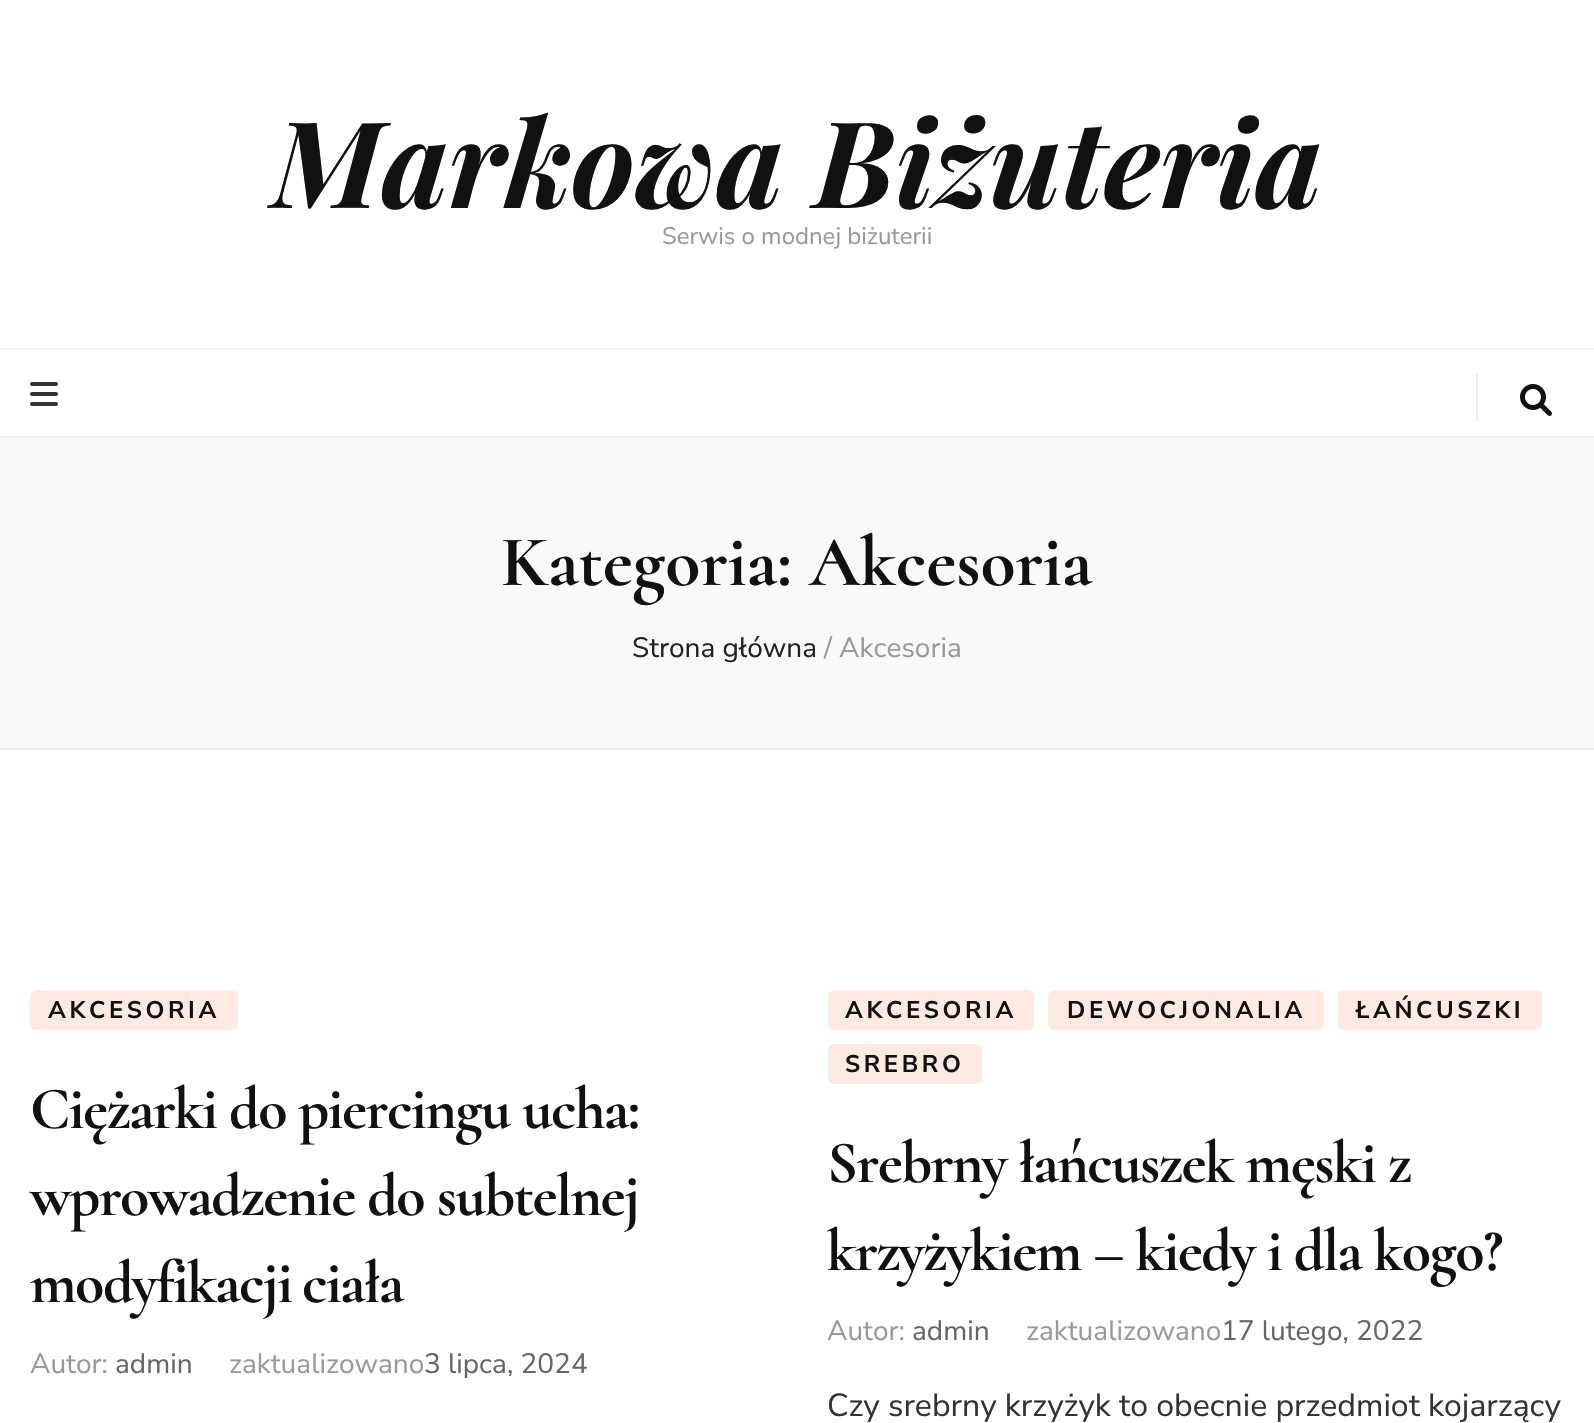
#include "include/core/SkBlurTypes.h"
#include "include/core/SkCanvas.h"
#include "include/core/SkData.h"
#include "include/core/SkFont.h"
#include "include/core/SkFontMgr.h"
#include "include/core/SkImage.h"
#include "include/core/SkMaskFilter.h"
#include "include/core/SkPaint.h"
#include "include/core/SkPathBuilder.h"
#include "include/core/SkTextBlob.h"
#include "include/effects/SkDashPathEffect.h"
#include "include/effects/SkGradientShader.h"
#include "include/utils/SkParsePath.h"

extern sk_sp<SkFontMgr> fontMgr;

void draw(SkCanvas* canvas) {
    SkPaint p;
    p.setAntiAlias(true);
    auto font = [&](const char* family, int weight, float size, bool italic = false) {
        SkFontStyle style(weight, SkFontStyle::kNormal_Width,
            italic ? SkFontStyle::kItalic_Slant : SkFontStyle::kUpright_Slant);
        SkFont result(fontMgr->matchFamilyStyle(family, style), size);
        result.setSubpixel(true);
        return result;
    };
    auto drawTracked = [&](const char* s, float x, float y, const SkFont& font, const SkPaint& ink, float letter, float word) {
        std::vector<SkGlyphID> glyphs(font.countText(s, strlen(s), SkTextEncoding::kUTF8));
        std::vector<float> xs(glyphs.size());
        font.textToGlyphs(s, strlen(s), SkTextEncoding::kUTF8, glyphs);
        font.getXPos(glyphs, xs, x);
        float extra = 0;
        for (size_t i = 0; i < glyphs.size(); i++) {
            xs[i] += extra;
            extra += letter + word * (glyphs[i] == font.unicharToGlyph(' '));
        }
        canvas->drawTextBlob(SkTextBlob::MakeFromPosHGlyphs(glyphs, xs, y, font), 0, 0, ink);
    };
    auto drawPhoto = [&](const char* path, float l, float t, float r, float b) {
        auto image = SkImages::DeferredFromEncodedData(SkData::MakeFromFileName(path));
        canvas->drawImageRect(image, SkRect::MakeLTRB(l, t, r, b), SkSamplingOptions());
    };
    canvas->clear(0xFFFFFFFF);
    auto font1 = font("Playfair Display", 700, 120, true);
    p.setColor(0xFF111111);
    canvas->drawString("Markowa Biżuteria", 272, 208, font1, p);
    auto font2 = font("Nunito Sans", 400, 24);
    p.setColor(0xFF999999);
    canvas->drawString("Serwis o modnej biżuterii", 662, 244, font2, p);
    p.setColor(0xFFEEEEEE);
    canvas->drawRect(SkRect::MakeLTRB(0, 348, 1594, 350), p);
    canvas->drawRect(SkRect::MakeLTRB(0, 436, 1594, 438), p);
    drawPhoto("media/1.png", 30, 382, 58, 406);
    canvas->drawRect(SkRect::MakeLTRB(1476, 374, 1478, 422), p);
    drawPhoto("media/2.png", 1520, 384, 1552, 416);
    p.setColor(0xFFF9F9F9);
    canvas->drawRect(SkRect::MakeLTRB(0, 438, 1594, 748), p);
    p.setColor(0xFFEEEEEE);
    canvas->drawRect(SkRect::MakeLTRB(0, 748, 1594, 750), p);
    auto font3 = font("Cormorant", 700, 72);
    p.setColor(0xFF111111);
    canvas->drawString("Kategoria: Akcesoria", 501, 585, font3, p);
    auto font4 = font("Nunito Sans", 400, 28);
    p.setColor(0xFF222222);
    canvas->drawString("Strona główna", 632, 657, font4, p);
    p.setColor(0xFF999999);
    canvas->drawString("/ Akcesoria", 824, 657, font4, p);
    p.setColor(0xFFFEEAE3);
    canvas->drawRoundRect(SkRect::MakeLTRB(30, 990, 238, 1030), 6, 6, p);
    auto font5 = font("Nunito Sans", 700, 24);
    p.setColor(0xFF111111);
    drawTracked("AKCESORIA", 48, 1018, font5, p, 3.6f, 0);
    auto font6 = font("Cormorant", 700, 60);
    drawTracked("Ciężarki do piercingu ucha:", 30, 1128, font6, p, -1.5f, 0);
    drawTracked("wprowadzenie do subtelnej", 30, 1215, font6, p, -1.5f, 0);
    drawTracked("modyfikacji ciała", 30, 1302, font6, p, -1.5f, -2);
    p.setColor(0xFF999999);
    canvas->drawString("Autor:", 30, 1373, font4, p);
    p.setColor(0xFF666666);
    canvas->drawString("admin", 115, 1373, font4, p);
    p.setColor(0xFF999999);
    canvas->drawString("zaktualizowano", 229, 1373, font4, p);
    p.setColor(0xFF666666);
    canvas->drawString("3 lipca, 2024", 424, 1373, font4, p);
    p.setColor(0xFFFEEAE3);
    canvas->drawRoundRect(SkRect::MakeLTRB(828, 990, 1034, 1030), 6, 6, p);
    p.setColor(0xFF111111);
    drawTracked("AKCESORIA", 845, 1018, font5, p, 3.6f, 0);
    p.setColor(0xFFFEEAE3);
    canvas->drawRoundRect(SkRect::MakeLTRB(1048, 990, 1324, 1030), 6, 6, p);
    p.setColor(0xFF111111);
    drawTracked("DEWOCJONALIA", 1067, 1018, font5, p, 3.6f, 0);
    p.setColor(0xFFFEEAE3);
    canvas->drawRoundRect(SkRect::MakeLTRB(1338, 990, 1542, 1030), 6, 6, p);
    p.setColor(0xFF111111);
    drawTracked("ŁAŃCUSZKI", 1356, 1018, font5, p, 3.6f, 0);
    p.setColor(0xFFFEEAE3);
    canvas->drawRoundRect(SkRect::MakeLTRB(828, 1044, 982, 1084), 6, 6, p);
    p.setColor(0xFF111111);
    drawTracked("SREBRO", 845, 1072, font5, p, 3.6f, 0);
    drawTracked("Srebrny łańcuszek męski z", 827, 1182, font6, p, -1.5f, 0);
    drawTracked("krzyżykiem – kiedy i dla kogo?", 827, 1270, font6, p, -1.5f, 0);
    p.setColor(0xFF999999);
    canvas->drawString("Autor:", 827, 1340, font4, p);
    p.setColor(0xFF666666);
    canvas->drawString("admin", 912, 1340, font4, p);
    p.setColor(0xFF999999);
    canvas->drawString("zaktualizowano", 1026, 1340, font4, p);
    p.setColor(0xFF666666);
    canvas->drawString("17 lutego, 2022", 1221, 1340, font4, p);
    auto font7 = font("Nunito Sans", 400, 32);
    p.setColor(0xFF333333);
    canvas->drawString("Czy srebrny krzyżyk to obecnie przedmiot kojarzący", 827, 1416, font7, p);
}
